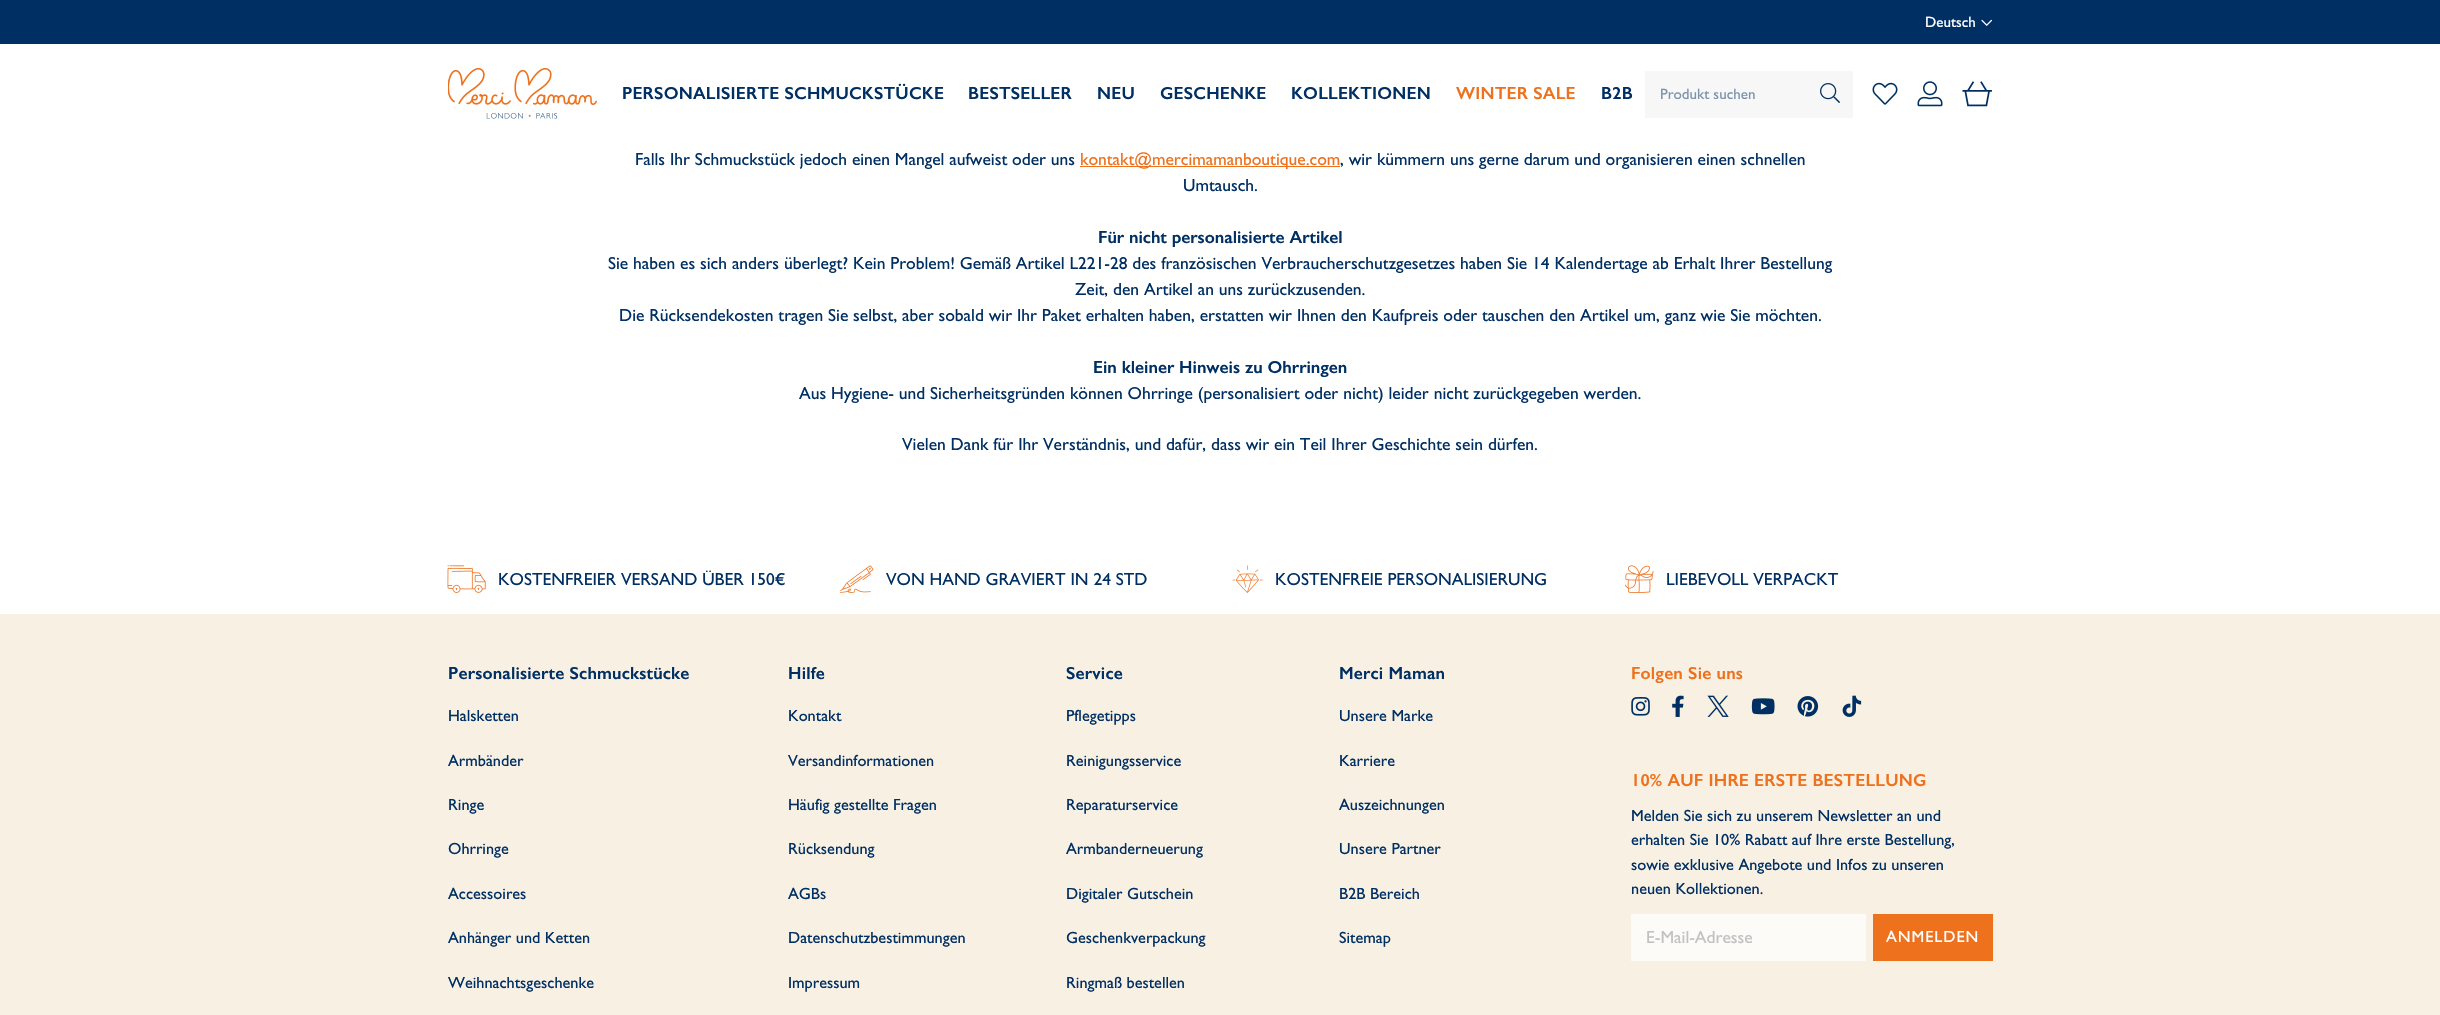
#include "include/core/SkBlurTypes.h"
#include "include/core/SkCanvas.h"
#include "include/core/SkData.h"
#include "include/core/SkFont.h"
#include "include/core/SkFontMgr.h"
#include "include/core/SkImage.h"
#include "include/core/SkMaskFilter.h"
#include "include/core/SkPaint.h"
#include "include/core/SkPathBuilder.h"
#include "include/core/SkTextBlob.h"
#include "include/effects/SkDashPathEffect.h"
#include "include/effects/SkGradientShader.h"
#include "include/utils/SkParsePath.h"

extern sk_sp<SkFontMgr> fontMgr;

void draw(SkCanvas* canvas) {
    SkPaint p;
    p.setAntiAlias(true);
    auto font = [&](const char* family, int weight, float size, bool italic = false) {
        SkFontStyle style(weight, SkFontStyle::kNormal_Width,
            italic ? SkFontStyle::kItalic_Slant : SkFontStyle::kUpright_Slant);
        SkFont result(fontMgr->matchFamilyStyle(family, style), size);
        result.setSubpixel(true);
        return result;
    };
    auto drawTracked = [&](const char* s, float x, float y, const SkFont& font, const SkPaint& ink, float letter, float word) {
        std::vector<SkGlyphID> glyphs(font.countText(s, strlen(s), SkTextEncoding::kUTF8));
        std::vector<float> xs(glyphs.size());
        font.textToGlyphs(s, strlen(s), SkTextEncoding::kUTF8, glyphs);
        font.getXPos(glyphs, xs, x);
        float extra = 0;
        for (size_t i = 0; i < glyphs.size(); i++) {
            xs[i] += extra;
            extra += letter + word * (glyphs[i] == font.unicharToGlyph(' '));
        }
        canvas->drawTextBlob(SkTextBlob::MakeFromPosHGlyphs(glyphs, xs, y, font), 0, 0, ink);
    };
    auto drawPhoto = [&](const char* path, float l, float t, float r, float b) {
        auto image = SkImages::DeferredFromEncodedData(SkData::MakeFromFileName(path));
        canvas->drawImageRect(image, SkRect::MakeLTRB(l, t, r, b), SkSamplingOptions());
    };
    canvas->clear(0xFFFFFFFF);
    p.setColor(0xFF002F63);
    canvas->drawRect(SkRect::MakeLTRB(0, 0, 2440, 44), p);
    auto font1 = font("Gill Sans", 400, 15);
    p.setColor(0xFFFFFFFF);
    canvas->drawString("Deutsch", 1925, 27, font1, p);
    drawPhoto("media/1.png", 1981, 19, 1993, 26);
    drawPhoto("media/2.png", 448, 68, 597, 119);
    auto font2 = font("Gill Sans", 600, 17.5f);
    p.setColor(0xFF002F63);
    {
        const struct { const char* s; float x, y; } items[] = {
            {"PERSONALISIERTE SCHMUCKSTÜCKE", 622, 99},
            {"BESTSELLER", 968, 99},
            {"NEU", 1097, 99},
            {"GESCHENKE", 1160, 99},
            {"KOLLEKTIONEN", 1291, 99},
        };
        for (auto [s, x, y] : items) {
            drawTracked(s, x, y, font2, p, 0.2f, 0);
        }
    }
    p.setColor(0xFFEE721E);
    drawTracked("WINTER SALE", 1456, 99, font2, p, 0.2f, 0);
    p.setColor(0xFF002F63);
    drawTracked("B2B", 1601, 99, font2, p, 0.2f, 0);
    p.setColor(0xFFF7F7F7);
    canvas->drawRect(SkRect::MakeLTRB(1645, 71, 1853, 118), p);
    p.setColor(0xFF7C93AD);
    canvas->drawString("Produkt suchen", 1660, 99, font1, p);
    drawPhoto("media/3.png", 1820, 83, 1840, 103);
    drawPhoto("media/4.png", 1872, 82, 1898, 105);
    drawPhoto("media/5.png", 1917, 81, 1943, 107);
    drawPhoto("media/6.png", 1962, 81, 1992, 107);
    auto font3 = font("Gill Sans", 400, 17.5f);
    p.setColor(0xFF002F63);
    canvas->drawString("Falls Ihr Schmuckstück jedoch einen Mangel aufweist oder uns", 635, 165, font3, p);
    p.setColor(0xFFEE721E);
    canvas->drawRect(SkRect::MakeLTRB(1080, 166, 1340, 167), p);
    canvas->drawString("kontakt@mercimamanboutique.com", 1080, 165, font3, p);
    p.setColor(0xFF002F63);
    canvas->drawString(", wir kümmern uns gerne darum und organisieren einen schnellen", 1340, 165, font3, p);
    canvas->drawString("Umtausch.", 1183, 191, font3, p);
    canvas->drawString("Für nicht personalisierte Artikel", 1098, 243, font2, p);
    {
        const struct { const char* s; float x, y; } items[] = {
            {"Sie haben es sich anders überlegt? Kein Problem! Gemäß Artikel L221-28 des französischen Verbraucherschutzgesetzes haben Sie 14 Kalendertage ab Erhalt Ihrer Bestellung", 608, 269},
            {"Zeit, den Artikel an uns zurückzusenden.", 1075, 295},
            {"Die Rücksendekosten tragen Sie selbst, aber sobald wir Ihr Paket erhalten haben, erstatten wir Ihnen den Kaufpreis oder tauschen den Artikel um, ganz wie Sie möchten.", 619, 321},
        };
        for (auto [s, x, y] : items) {
            canvas->drawString(s, x, y, font3, p);
        }
    }
    canvas->drawString("Ein kleiner Hinweis zu Ohrringen", 1093, 373, font2, p);
    canvas->drawString("Aus Hygiene- und Sicherheitsgründen können Ohrringe (personalisiert oder nicht) leider nicht zurückgegeben werden.", 799, 399, font3, p);
    canvas->drawString("Vielen Dank für Ihr Verständnis, und dafür, dass wir ein Teil Ihrer Geschichte sein dürfen.", 902, 450, font3, p);
    drawPhoto("media/7.png", 447, 565, 486, 593);
    canvas->drawString("KOSTENFREIER VERSAND ÜBER 150€", 498, 585, font3, p);
    drawPhoto("media/8.png", 840, 565, 874, 593);
    canvas->drawString("VON HAND GRAVIERT IN 24 STD", 886, 585, font3, p);
    drawPhoto("media/9.png", 1232, 565, 1263, 593);
    canvas->drawString("KOSTENFREIE PERSONALISIERUNG", 1275, 585, font3, p);
    drawPhoto("media/10.png", 1625, 565, 1654, 593);
    canvas->drawString("LIEBEVOLL VERPACKT", 1666, 585, font3, p);
    p.setColor(0xFFF7F0E3);
    canvas->drawRect(SkRect::MakeLTRB(0, 614, 2440, 1015), p);
    p.setColor(0xFF002F63);
    drawTracked("Personalisierte Schmuckstücke", 448, 679, font2, p, 0.2f, 0);
    auto font4 = font("Gill Sans", 400, 16.25f);
    {
        const struct { const char* s; float x, y; } items[] = {
            {"Halsketten", 448, 721},
            {"Armbänder", 448, 766},
            {"Ringe", 448, 810},
            {"Ohrringe", 448, 854},
            {"Accessoires", 448, 899},
            {"Anhänger und Ketten", 448, 943},
            {"Weihnachtsgeschenke", 448, 988},
        };
        for (auto [s, x, y] : items) {
            canvas->drawString(s, x, y, font4, p);
        }
    }
    drawTracked("Hilfe", 788, 679, font2, p, 0.2f, 0);
    {
        const struct { const char* s; float x, y; } items[] = {
            {"Kontakt", 788, 721},
            {"Versandinformationen", 788, 766},
            {"Häufig gestellte Fragen", 788, 810},
            {"Rücksendung", 788, 854},
            {"AGBs", 788, 899},
            {"Datenschutzbestimmungen", 788, 943},
            {"Impressum", 788, 988},
        };
        for (auto [s, x, y] : items) {
            canvas->drawString(s, x, y, font4, p);
        }
    }
    drawTracked("Service", 1066, 679, font2, p, 0.2f, 0);
    {
        const struct { const char* s; float x, y; } items[] = {
            {"Pflegetipps", 1066, 721},
            {"Reinigungsservice", 1066, 766},
            {"Reparaturservice", 1066, 810},
            {"Armbanderneuerung", 1066, 854},
            {"Digitaler Gutschein", 1066, 899},
            {"Geschenkverpackung", 1066, 943},
            {"Ringmaß bestellen", 1066, 988},
        };
        for (auto [s, x, y] : items) {
            canvas->drawString(s, x, y, font4, p);
        }
    }
    drawTracked("Merci Maman", 1339, 679, font2, p, 0.2f, 0);
    {
        const struct { const char* s; float x, y; } items[] = {
            {"Unsere Marke", 1339, 721},
            {"Karriere", 1339, 766},
            {"Auszeichnungen", 1339, 810},
            {"Unsere Partner", 1339, 854},
            {"B2B Bereich", 1339, 899},
            {"Sitemap", 1339, 943},
        };
        for (auto [s, x, y] : items) {
            canvas->drawString(s, x, y, font4, p);
        }
    }
    p.setColor(0xFFEE721E);
    drawTracked("Folgen Sie uns", 1631, 679, font2, p, 0.2f, 0);
    drawPhoto("media/11.png", 1631, 697, 1650, 716);
    drawPhoto("media/12.png", 1672, 695, 1684, 717);
    drawPhoto("media/13.png", 1707, 695, 1729, 717);
    drawPhoto("media/14.png", 1751, 698, 1775, 715);
    drawPhoto("media/15.png", 1797, 696, 1819, 717);
    drawPhoto("media/16.png", 1842, 695, 1862, 717);
    drawTracked("10% AUF IHRE ERSTE BESTELLUNG", 1631, 786, font2, p, 0.2f, 0);
    p.setColor(0xFF002F63);
    {
        const struct { const char* s; float x, y; } items[] = {
            {"Melden Sie sich zu unserem Newsletter an und", 1631, 821},
            {"erhalten Sie 10% Rabatt auf Ihre erste Bestellung,", 1631, 845},
            {"sowie exklusive Angebote und Infos zu unseren", 1631, 870},
            {"neuen Kollektionen.", 1631, 894},
        };
        for (auto [s, x, y] : items) {
            canvas->drawString(s, x, y, font4, p);
        }
    }
    p.setColor(0xFFFCFBF7);
    canvas->drawRect(SkRect::MakeLTRB(1631, 914, 1866, 961), p);
    p.setColor(0xFFC2C2C2);
    canvas->drawString("E-Mail-Adresse", 1646, 943, font3, p);
    p.setColor(0xFFEE721E);
    canvas->drawRect(SkRect::MakeLTRB(1873, 914, 1993, 961), p);
    p.setColor(0xFFFFFFFF);
    drawTracked("ANMELDEN", 1886, 942, font4, p, 1, 0);
}
